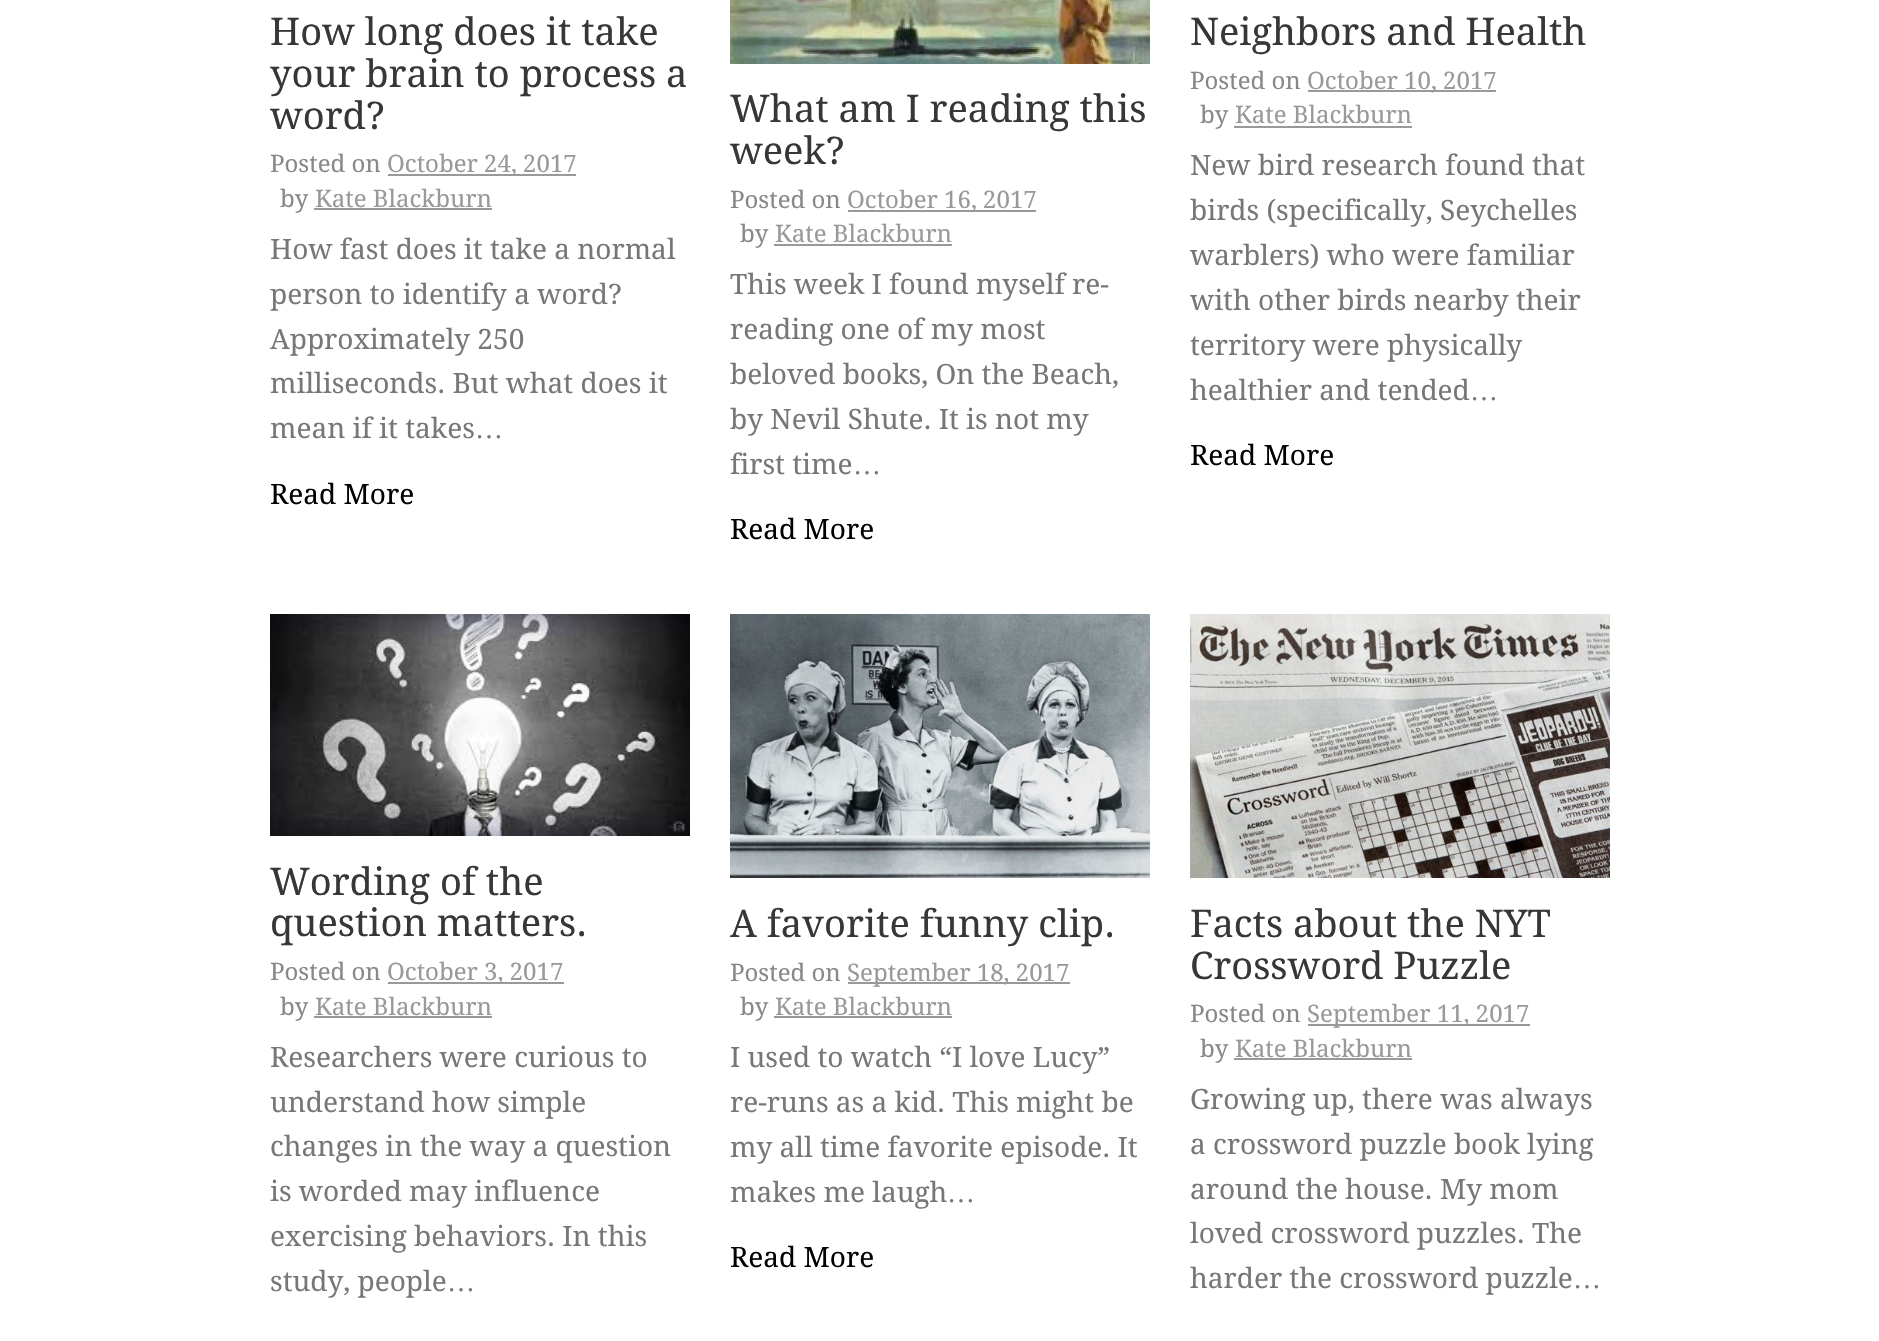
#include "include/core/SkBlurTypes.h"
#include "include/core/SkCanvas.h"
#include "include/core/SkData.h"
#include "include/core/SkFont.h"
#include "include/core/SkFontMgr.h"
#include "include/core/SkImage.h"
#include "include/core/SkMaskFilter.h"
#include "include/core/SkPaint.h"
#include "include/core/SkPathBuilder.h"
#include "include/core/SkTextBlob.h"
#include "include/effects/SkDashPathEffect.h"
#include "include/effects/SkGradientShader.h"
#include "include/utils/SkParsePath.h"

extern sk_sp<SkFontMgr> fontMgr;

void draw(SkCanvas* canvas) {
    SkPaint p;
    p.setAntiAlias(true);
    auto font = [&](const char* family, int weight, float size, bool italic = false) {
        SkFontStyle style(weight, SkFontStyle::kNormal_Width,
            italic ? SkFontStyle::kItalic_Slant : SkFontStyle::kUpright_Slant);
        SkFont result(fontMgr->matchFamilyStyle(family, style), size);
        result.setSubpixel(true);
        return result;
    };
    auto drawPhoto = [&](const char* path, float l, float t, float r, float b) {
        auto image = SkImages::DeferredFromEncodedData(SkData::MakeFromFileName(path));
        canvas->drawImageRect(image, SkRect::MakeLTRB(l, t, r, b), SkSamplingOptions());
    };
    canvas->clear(0xFFFFFFFF);
    auto font1 = font("Droid Serif", 400, 38);
    p.setColor(0xFF373737);
    {
        const struct { const char* s; float x, y; } items[] = {
            {"How long does it take", 270, 45},
            {"your brain to process a", 270, 87},
            {"word?", 270, 129},
        };
        for (auto [s, x, y] : items) {
            canvas->drawString(s, x, y, font1, p);
        }
    }
    auto font2 = font("Droid Serif", 400, 24);
    p.setColor(0xFF888888);
    canvas->drawString("Posted on", 270, 172, font2, p);
    p.setColor(0xFF999999);
    canvas->drawRect(SkRect::MakeLTRB(388, 174, 576, 176), p);
    canvas->drawString("October 24, 2017", 387, 172, font2, p);
    p.setColor(0xFF888888);
    canvas->drawString("by", 280, 207, font2, p);
    p.setColor(0xFF999999);
    canvas->drawString("Kate Blackburn", 315, 207, font2, p);
    canvas->drawRect(SkRect::MakeLTRB(314, 208, 492, 210), p);
    auto font3 = font("Droid Serif", 400, 28);
    p.setColor(0xFF777777);
    {
        const struct { const char* s; float x, y; } items[] = {
            {"How fast does it take a normal", 270, 259},
            {"person to identify a word?", 270, 304},
            {"Approximately 250", 270, 349},
            {"milliseconds. But what does it", 270, 393},
            {"mean if it takes", 270, 438},
        };
        for (auto [s, x, y] : items) {
            canvas->drawString(s, x, y, font3, p);
        }
    }
    auto font4 = font("Liberation Serif", 400, 28);
    canvas->drawString("…", 475, 438, font4, p);
    p.setColor(0xFF000000);
    canvas->drawString("Read More", 270, 504, font3, p);
    drawPhoto("media/1.png", 730, 0, 1150, 64);
    p.setColor(0xFF373737);
    canvas->drawString("What am I reading this", 730, 122, font1, p);
    canvas->drawString("week?", 730, 164, font1, p);
    p.setColor(0xFF888888);
    canvas->drawString("Posted on", 730, 208, font2, p);
    p.setColor(0xFF999999);
    canvas->drawRect(SkRect::MakeLTRB(848, 210, 1036, 212), p);
    canvas->drawString("October 16, 2017", 847, 208, font2, p);
    p.setColor(0xFF888888);
    canvas->drawString("by", 740, 242, font2, p);
    p.setColor(0xFF999999);
    canvas->drawString("Kate Blackburn", 775, 242, font2, p);
    canvas->drawRect(SkRect::MakeLTRB(774, 244, 952, 246), p);
    p.setColor(0xFF777777);
    {
        const struct { const char* s; float x, y; } items[] = {
            {"This week I found myself re-", 730, 294},
            {"reading one of my most", 730, 339},
            {"beloved books, On the Beach,", 730, 384},
            {"by Nevil Shute. It is not my", 730, 429},
            {"first time", 730, 474},
        };
        for (auto [s, x, y] : items) {
            canvas->drawString(s, x, y, font3, p);
        }
    }
    canvas->drawString("…", 853, 474, font4, p);
    p.setColor(0xFF000000);
    canvas->drawString("Read More", 730, 539, font3, p);
    p.setColor(0xFF373737);
    canvas->drawString("Neighbors and Health", 1190, 45, font1, p);
    p.setColor(0xFF888888);
    canvas->drawString("Posted on", 1190, 89, font2, p);
    p.setColor(0xFF999999);
    canvas->drawRect(SkRect::MakeLTRB(1308, 90, 1496, 92), p);
    canvas->drawString("October 10, 2017", 1307, 89, font2, p);
    p.setColor(0xFF888888);
    canvas->drawString("by", 1200, 123, font2, p);
    p.setColor(0xFF999999);
    canvas->drawString("Kate Blackburn", 1235, 123, font2, p);
    canvas->drawRect(SkRect::MakeLTRB(1234, 126, 1412, 128), p);
    p.setColor(0xFF777777);
    {
        const struct { const char* s; float x, y; } items[] = {
            {"New bird research found that", 1190, 175},
            {"birds (specifically, Seychelles", 1190, 220},
            {"warblers) who were familiar", 1190, 265},
            {"with other birds nearby their", 1190, 310},
            {"territory were physically", 1190, 355},
            {"healthier and tended", 1190, 400},
        };
        for (auto [s, x, y] : items) {
            canvas->drawString(s, x, y, font3, p);
        }
    }
    canvas->drawString("…", 1470, 400, font4, p);
    p.setColor(0xFF000000);
    canvas->drawString("Read More", 1190, 465, font3, p);
    drawPhoto("media/2.png", 270, 614, 690, 836);
    p.setColor(0xFF373737);
    canvas->drawString("Wording of the", 270, 895, font1, p);
    canvas->drawString("question matters.", 270, 936, font1, p);
    p.setColor(0xFF888888);
    canvas->drawString("Posted on", 270, 980, font2, p);
    p.setColor(0xFF999999);
    canvas->drawRect(SkRect::MakeLTRB(388, 982, 564, 984), p);
    canvas->drawString("October 3, 2017", 387, 980, font2, p);
    p.setColor(0xFF888888);
    canvas->drawString("by", 280, 1015, font2, p);
    p.setColor(0xFF999999);
    canvas->drawString("Kate Blackburn", 315, 1015, font2, p);
    canvas->drawRect(SkRect::MakeLTRB(314, 1016, 492, 1018), p);
    p.setColor(0xFF777777);
    {
        const struct { const char* s; float x, y; } items[] = {
            {"Researchers were curious to", 270, 1067},
            {"understand how simple", 270, 1112},
            {"changes in the way a question", 270, 1156},
            {"is worded may influence", 270, 1201},
            {"exercising behaviors. In this", 270, 1246},
            {"study, people", 270, 1291},
        };
        for (auto [s, x, y] : items) {
            canvas->drawString(s, x, y, font3, p);
        }
    }
    canvas->drawString("…", 447, 1291, font4, p);
    drawPhoto("media/3.png", 730, 614, 1150, 878);
    p.setColor(0xFF373737);
    canvas->drawString("A favorite funny clip.", 730, 937, font1, p);
    p.setColor(0xFF888888);
    canvas->drawString("Posted on", 730, 981, font2, p);
    p.setColor(0xFF999999);
    canvas->drawRect(SkRect::MakeLTRB(848, 982, 1070, 984), p);
    canvas->drawString("September 18, 2017", 847, 981, font2, p);
    p.setColor(0xFF888888);
    canvas->drawString("by", 740, 1015, font2, p);
    p.setColor(0xFF999999);
    canvas->drawString("Kate Blackburn", 775, 1015, font2, p);
    canvas->drawRect(SkRect::MakeLTRB(774, 1016, 952, 1018), p);
    p.setColor(0xFF777777);
    {
        const struct { const char* s; float x, y; } items[] = {
            {"I used to watch “I love Lucy”", 730, 1067},
            {"re-runs as a kid. This might be", 730, 1112},
            {"my all time favorite episode. It", 730, 1157},
            {"makes me laugh", 730, 1202},
        };
        for (auto [s, x, y] : items) {
            canvas->drawString(s, x, y, font3, p);
        }
    }
    canvas->drawString("…", 947, 1202, font4, p);
    p.setColor(0xFF000000);
    canvas->drawString("Read More", 730, 1267, font3, p);
    drawPhoto("media/4.png", 1190, 614, 1610, 878);
    p.setColor(0xFF373737);
    canvas->drawString("Facts about the NYT", 1190, 937, font1, p);
    canvas->drawString("Crossword Puzzle", 1190, 979, font1, p);
    p.setColor(0xFF888888);
    canvas->drawString("Posted on", 1190, 1022, font2, p);
    p.setColor(0xFF999999);
    canvas->drawRect(SkRect::MakeLTRB(1308, 1024, 1530, 1026), p);
    canvas->drawString("September 11, 2017", 1307, 1022, font2, p);
    p.setColor(0xFF888888);
    canvas->drawString("by", 1200, 1057, font2, p);
    p.setColor(0xFF999999);
    canvas->drawString("Kate Blackburn", 1235, 1057, font2, p);
    canvas->drawRect(SkRect::MakeLTRB(1234, 1058, 1412, 1060), p);
    p.setColor(0xFF777777);
    {
        const struct { const char* s; float x, y; } items[] = {
            {"Growing up, there was always", 1190, 1109},
            {"a crossword puzzle book lying", 1190, 1154},
            {"around the house. My mom", 1190, 1199},
            {"loved crossword puzzles. The", 1190, 1243},
            {"harder the crossword puzzle", 1190, 1288},
        };
        for (auto [s, x, y] : items) {
            canvas->drawString(s, x, y, font3, p);
        }
    }
    canvas->drawString("…", 1573, 1288, font4, p);
}
